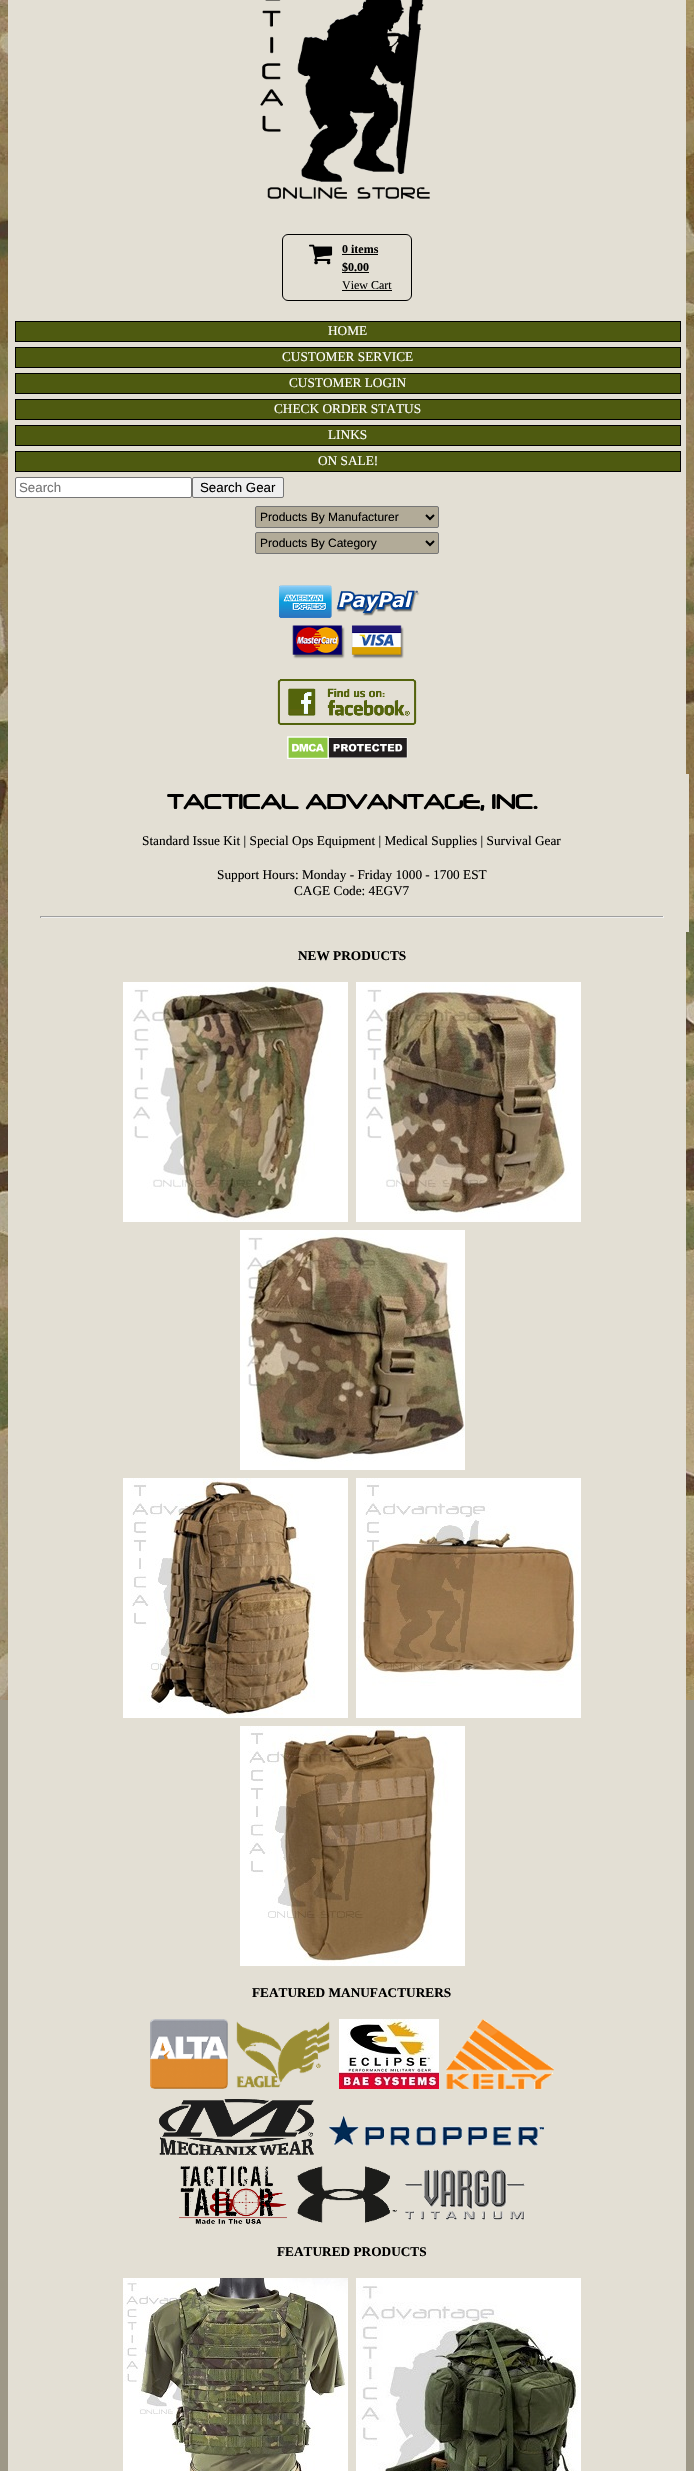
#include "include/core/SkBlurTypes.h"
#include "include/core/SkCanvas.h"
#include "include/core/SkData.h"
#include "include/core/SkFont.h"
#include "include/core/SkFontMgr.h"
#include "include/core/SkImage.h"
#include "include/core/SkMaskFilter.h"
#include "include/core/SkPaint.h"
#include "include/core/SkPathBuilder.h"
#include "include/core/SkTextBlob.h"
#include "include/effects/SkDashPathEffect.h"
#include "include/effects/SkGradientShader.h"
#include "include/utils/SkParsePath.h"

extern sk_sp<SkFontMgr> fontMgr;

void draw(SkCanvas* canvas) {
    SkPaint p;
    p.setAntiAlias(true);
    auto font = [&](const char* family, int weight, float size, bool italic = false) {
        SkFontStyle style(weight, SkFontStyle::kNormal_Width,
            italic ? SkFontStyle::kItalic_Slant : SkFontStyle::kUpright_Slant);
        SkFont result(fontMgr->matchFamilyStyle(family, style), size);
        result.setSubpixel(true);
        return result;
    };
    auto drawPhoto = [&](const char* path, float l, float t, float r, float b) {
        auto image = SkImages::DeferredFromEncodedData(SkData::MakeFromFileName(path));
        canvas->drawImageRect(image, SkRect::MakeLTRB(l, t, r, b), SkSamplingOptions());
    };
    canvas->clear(0xFF9E9887);
    drawPhoto("media/1.png", 0, 0, 694, 1700);
    p.setColor(0xFFE3DFD4);
    canvas->drawRect(SkRect::MakeLTRB(8, 0, 686, 2471), p);
    drawPhoto("media/2.png", 260, 0, 430, 199);
    p.setStyle(SkPaint::kStroke_Style);
    p.setStrokeWidth(1);
    p.setColor(0xFF000000);
    canvas->drawRoundRect(SkRect::MakeLTRB(282.5f, 234.5f, 411.5f, 300.5f), 5.5f, 5.5f, p);
    drawPhoto("media/3.png", 309, 244, 333, 265);
    auto font1 = font("Liberation Serif", 700, 12);
    p.setStyle(SkPaint::kFill_Style);
    canvas->drawString("0 items", 342, 253, font1, p);
    canvas->drawRect(SkRect::MakeLTRB(342, 254, 378, 255), p);
    canvas->drawString("$0.00", 342, 271, font1, p);
    canvas->drawRect(SkRect::MakeLTRB(342, 272, 369, 273), p);
    auto font2 = font("Liberation Serif", 400, 12);
    canvas->drawString("View Cart", 342, 289, font2, p);
    canvas->drawRect(SkRect::MakeLTRB(342, 290, 392, 291), p);
    p.setColor(0xFF4E5A10);
    canvas->drawRect(SkRect::MakeLTRB(15.5f, 321.5f, 680.5f, 341.5f), p);
    p.setStyle(SkPaint::kStroke_Style);
    p.setColor(0xFF000000);
    canvas->drawRect(SkRect::MakeLTRB(15.5f, 321.5f, 680.5f, 341.5f), p);
    auto font3 = font("Liberation Serif", 400, 13.3f);
    p.setStyle(SkPaint::kFill_Style);
    p.setColor(0xFFFFFFFF);
    canvas->drawString("HOME", 328, 335, font3, p);
    p.setColor(0xFF4E5A10);
    canvas->drawRect(SkRect::MakeLTRB(15.5f, 347.5f, 680.5f, 367.5f), p);
    p.setStyle(SkPaint::kStroke_Style);
    p.setColor(0xFF000000);
    canvas->drawRect(SkRect::MakeLTRB(15.5f, 347.5f, 680.5f, 367.5f), p);
    p.setStyle(SkPaint::kFill_Style);
    p.setColor(0xFFFFFFFF);
    canvas->drawString("CUSTOMER SERVICE", 282, 361, font3, p);
    p.setColor(0xFF4E5A10);
    canvas->drawRect(SkRect::MakeLTRB(15.5f, 373.5f, 680.5f, 393.5f), p);
    p.setStyle(SkPaint::kStroke_Style);
    p.setColor(0xFF000000);
    canvas->drawRect(SkRect::MakeLTRB(15.5f, 373.5f, 680.5f, 393.5f), p);
    p.setStyle(SkPaint::kFill_Style);
    p.setColor(0xFFFFFFFF);
    canvas->drawString("CUSTOMER LOGIN", 289, 387, font3, p);
    p.setColor(0xFF4E5A10);
    canvas->drawRect(SkRect::MakeLTRB(15.5f, 399.5f, 680.5f, 419.5f), p);
    p.setStyle(SkPaint::kStroke_Style);
    p.setColor(0xFF000000);
    canvas->drawRect(SkRect::MakeLTRB(15.5f, 399.5f, 680.5f, 419.5f), p);
    p.setStyle(SkPaint::kFill_Style);
    p.setColor(0xFFFFFFFF);
    canvas->drawString("CHECK ORDER STATUS", 274, 413, font3, p);
    p.setColor(0xFF4E5A10);
    canvas->drawRect(SkRect::MakeLTRB(15.5f, 425.5f, 680.5f, 445.5f), p);
    p.setStyle(SkPaint::kStroke_Style);
    p.setColor(0xFF000000);
    canvas->drawRect(SkRect::MakeLTRB(15.5f, 425.5f, 680.5f, 445.5f), p);
    p.setStyle(SkPaint::kFill_Style);
    p.setColor(0xFFFFFFFF);
    canvas->drawString("LINKS", 328, 439, font3, p);
    p.setColor(0xFF4E5A10);
    canvas->drawRect(SkRect::MakeLTRB(15.5f, 451.5f, 680.5f, 471.5f), p);
    p.setStyle(SkPaint::kStroke_Style);
    p.setColor(0xFF000000);
    canvas->drawRect(SkRect::MakeLTRB(15.5f, 451.5f, 680.5f, 471.5f), p);
    p.setStyle(SkPaint::kFill_Style);
    p.setColor(0xFFFFFFFF);
    canvas->drawString("ON SALE!", 318, 465, font3, p);
    canvas->drawRoundRect(SkRect::MakeLTRB(15.5f, 477.5f, 191.5f, 497.5f), 1.5f, 1.5f, p);
    p.setStyle(SkPaint::kStroke_Style);
    p.setColor(0xFF767676);
    canvas->drawRoundRect(SkRect::MakeLTRB(15.5f, 477.5f, 191.5f, 497.5f), 1.5f, 1.5f, p);
    auto font4 = font("Liberation Sans", 400, 13.3f);
    p.setStyle(SkPaint::kFill_Style);
    p.setColor(0xFF757575);
    canvas->drawString("Search", 19, 492, font4, p);
    p.setColor(0xFFEFEFEF);
    canvas->drawRoundRect(SkRect::MakeLTRB(192.5f, 477.5f, 283.5f, 497.5f), 1.5f, 1.5f, p);
    p.setStyle(SkPaint::kStroke_Style);
    p.setColor(0xFF767676);
    canvas->drawRoundRect(SkRect::MakeLTRB(192.5f, 477.5f, 283.5f, 497.5f), 1.5f, 1.5f, p);
    p.setStyle(SkPaint::kFill_Style);
    p.setColor(0xFF000000);
    canvas->drawString("Search Gear", 200, 492, font4, p);
    p.setColor(0xFFB2AB98);
    canvas->drawRoundRect(SkRect::MakeLTRB(255.5f, 506.5f, 438.5f, 527.5f), 1.5f, 1.5f, p);
    p.setStyle(SkPaint::kStroke_Style);
    p.setColor(0xFF767676);
    canvas->drawRoundRect(SkRect::MakeLTRB(255.5f, 506.5f, 438.5f, 527.5f), 1.5f, 1.5f, p);
    p.setStrokeWidth(2);
    p.setColor(0xFF000000);
    canvas->drawPath(SkPathBuilder().moveTo(426, 515).lineTo(430, 519).lineTo(434, 515).detach(), p);
    auto font5 = font("Liberation Sans", 400, 12);
    p.setStyle(SkPaint::kFill_Style);
    canvas->drawString("Products By Manufacturer", 260, 521, font5, p);
    p.setColor(0xFFB2AB98);
    canvas->drawRoundRect(SkRect::MakeLTRB(255.5f, 532.5f, 438.5f, 553.5f), 1.5f, 1.5f, p);
    p.setStyle(SkPaint::kStroke_Style);
    p.setStrokeWidth(1);
    p.setColor(0xFF767676);
    canvas->drawRoundRect(SkRect::MakeLTRB(255.5f, 532.5f, 438.5f, 553.5f), 1.5f, 1.5f, p);
    p.setStrokeWidth(2);
    p.setColor(0xFF000000);
    canvas->drawPath(SkPathBuilder().moveTo(426, 541).lineTo(430, 545).lineTo(434, 541).detach(), p);
    p.setStyle(SkPaint::kFill_Style);
    canvas->drawString("Products By Category", 260, 547, font5, p);
    drawPhoto("media/4.png", 279, 585, 420, 659);
    drawPhoto("media/5.png", 277, 679, 417, 725);
    drawPhoto("media/6.png", 287, 736, 408, 759);
    p.setColor(0xFFE3DFD4);
    canvas->drawRect(SkRect::MakeLTRB(686, 774, 689, 932), p);
    auto font6 = font("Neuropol", 700, 24);
    p.setColor(0xFF000000);
    canvas->drawString("TACTICAL ADVANTAGE, INC.", 167, 809, font6, p);
    {
        const struct { const char* s; float x, y; } items[] = {
            {"Standard Issue Kit | Special Ops Equipment | Medical Supplies | Survival Gear", 142, 845},
            {"Support Hours: Monday - Friday 1000 - 1700 EST", 217, 879},
            {"CAGE Code: 4EGV7", 294, 895},
        };
        for (auto [s, x, y] : items) {
            canvas->drawString(s, x, y, font3, p);
        }
    }
    {
        const struct { float l, t, r, b; SkColor color; } items[] = {
            {40, 916, 664, 917, 0xFF9F9F9F},
            {663, 916, 664, 918, 0xFFEEEEEE},
            {40, 917, 664, 918, 0xFFEEEEEE},
            {40, 916, 41, 918, 0xFF9F9F9F},
        };
        for (auto [l, t, r, b, color] : items) {
            p.setColor(color);
            canvas->drawRect(SkRect::MakeLTRB(l, t, r, b), p);
        }
    }
    auto font7 = font("Liberation Serif", 700, 13.3f);
    p.setColor(0xFF000000);
    canvas->drawString("NEW PRODUCTS", 298, 960, font7, p);
    drawPhoto("media/7.png", 123, 982, 348, 1222);
    drawPhoto("media/8.png", 356, 982, 581, 1222);
    drawPhoto("media/9.png", 240, 1230, 465, 1470);
    drawPhoto("media/10.png", 123, 1478, 348, 1718);
    drawPhoto("media/11.png", 356, 1478, 581, 1718);
    drawPhoto("media/12.png", 240, 1726, 465, 1966);
    canvas->drawString("FEATURED MANUFACTURERS", 252, 1997, font7, p);
    drawPhoto("media/13.png", 150, 2019, 228, 2089);
    drawPhoto("media/14.png", 236, 2021, 330, 2088);
    drawPhoto("media/15.png", 339, 2019, 439, 2089);
    drawPhoto("media/16.png", 446, 2019, 554, 2089);
    drawPhoto("media/17.png", 159, 2099, 314, 2155);
    drawPhoto("media/18.png", 329, 2116, 545, 2146);
    drawPhoto("media/19.png", 179, 2165, 287, 2224);
    drawPhoto("media/20.png", 297, 2166, 397, 2223);
    drawPhoto("media/21.png", 405, 2169, 525, 2220);
    canvas->drawString("FEATURED PRODUCTS", 277, 2256, font7, p);
    drawPhoto("media/22.png", 123, 2278, 348, 2471);
    drawPhoto("media/23.png", 356, 2278, 581, 2471);
}
